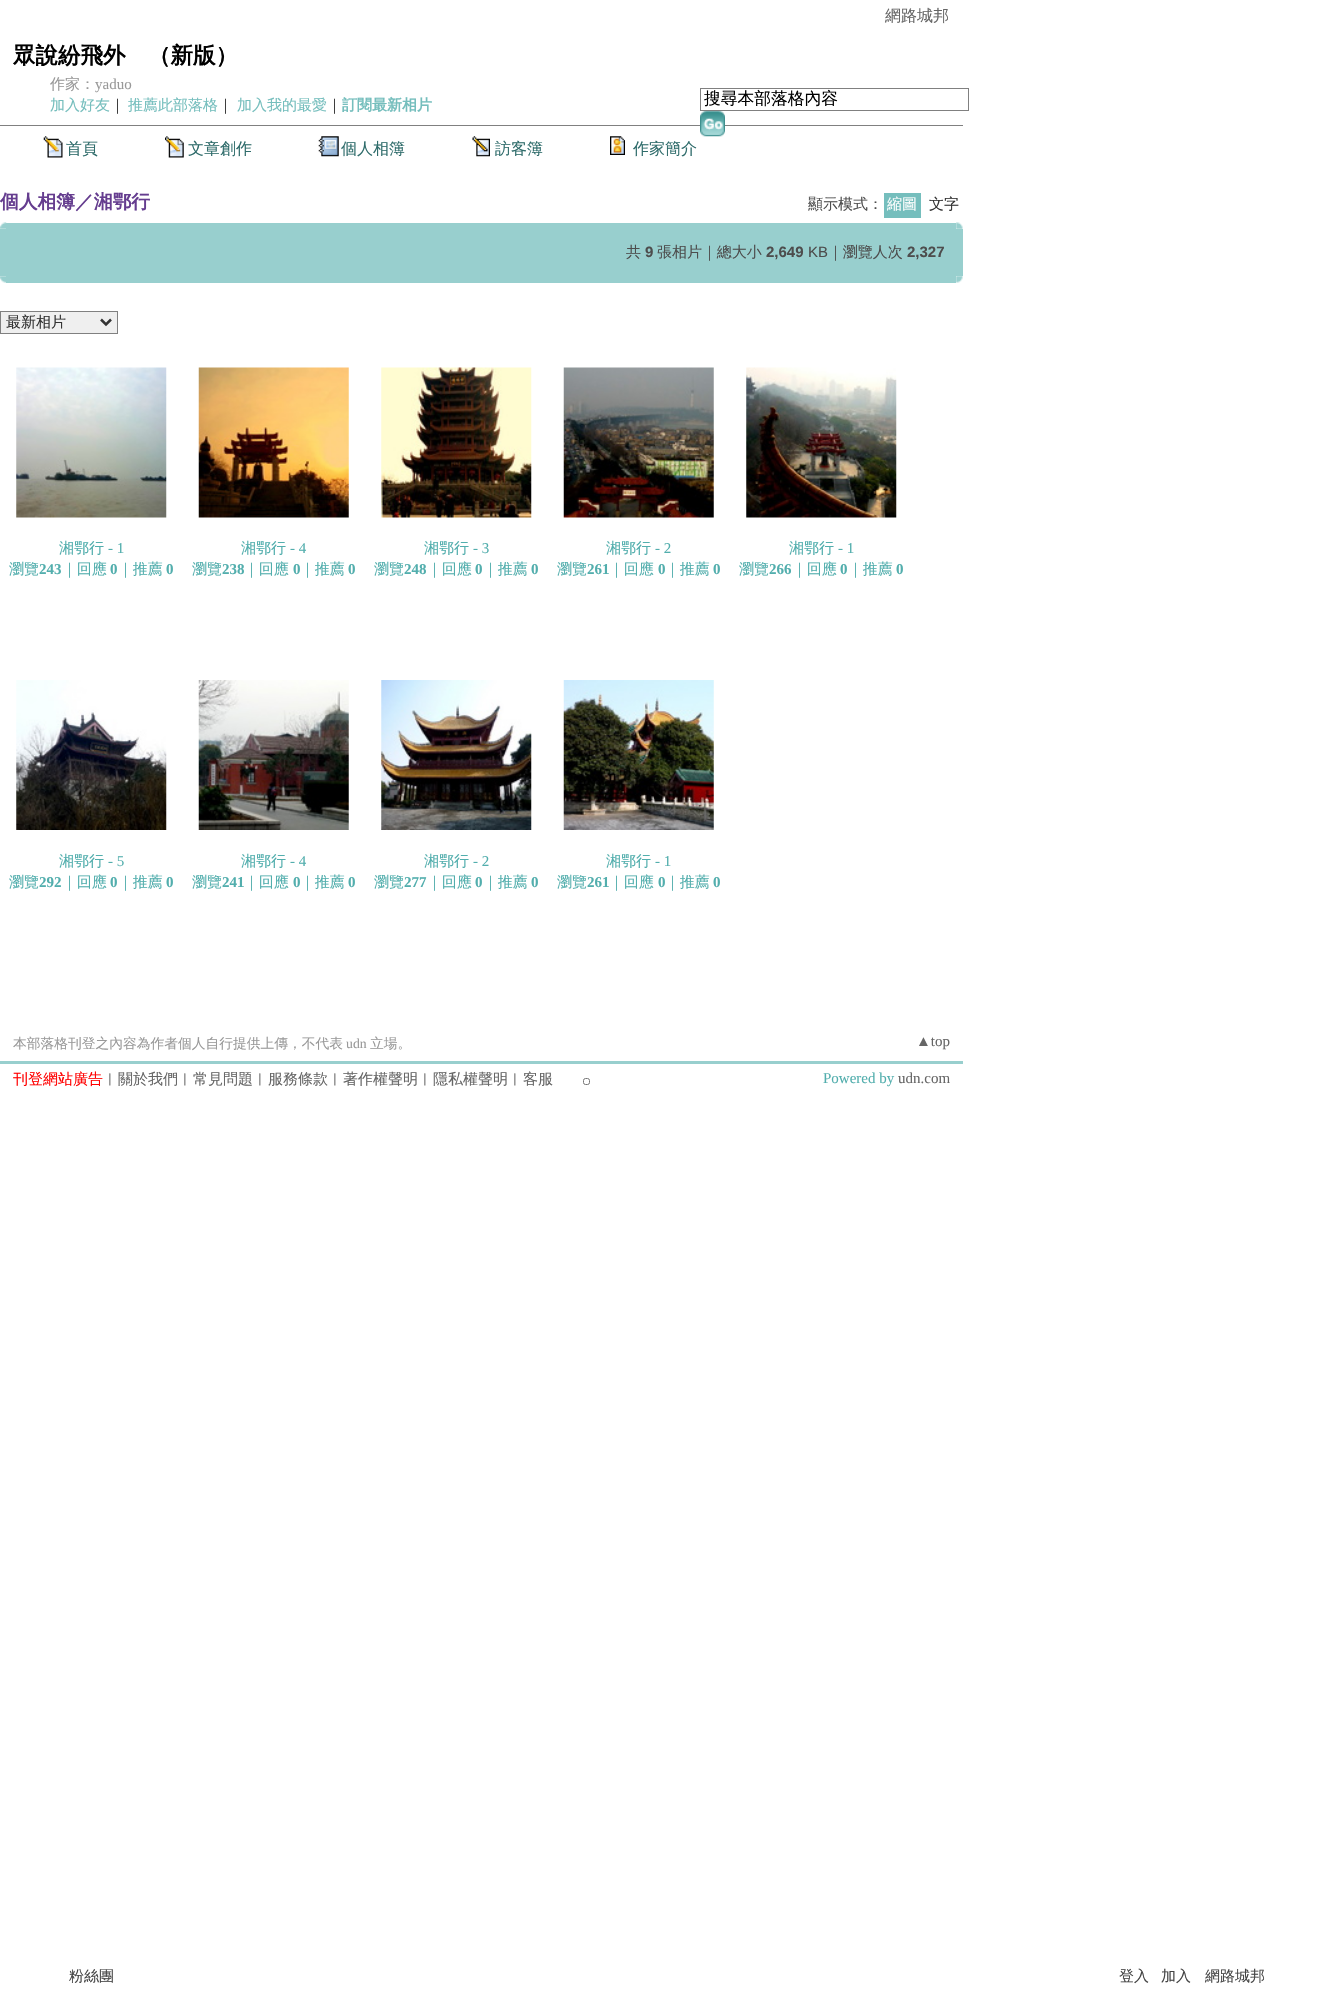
#include "include/core/SkBlurTypes.h"
#include "include/core/SkCanvas.h"
#include "include/core/SkData.h"
#include "include/core/SkFont.h"
#include "include/core/SkFontMgr.h"
#include "include/core/SkImage.h"
#include "include/core/SkMaskFilter.h"
#include "include/core/SkPaint.h"
#include "include/core/SkPathBuilder.h"
#include "include/core/SkTextBlob.h"
#include "include/effects/SkDashPathEffect.h"
#include "include/effects/SkGradientShader.h"
#include "include/utils/SkParsePath.h"

extern sk_sp<SkFontMgr> fontMgr;

void draw(SkCanvas* canvas) {
    SkPaint p;
    p.setAntiAlias(true);
    auto font = [&](const char* family, int weight, float size, bool italic = false) {
        SkFontStyle style(weight, SkFontStyle::kNormal_Width,
            italic ? SkFontStyle::kItalic_Slant : SkFontStyle::kUpright_Slant);
        SkFont result(fontMgr->matchFamilyStyle(family, style), size);
        result.setSubpixel(true);
        return result;
    };
    auto drawPhoto = [&](const char* path, float l, float t, float r, float b) {
        auto image = SkImages::DeferredFromEncodedData(SkData::MakeFromFileName(path));
        canvas->drawImageRect(image, SkRect::MakeLTRB(l, t, r, b), SkSamplingOptions());
    };
    canvas->clear(0xFFFFFFFF);
    auto font1 = font("WenQuanYi Zen Hei", 500, 16);
    p.setColor(0xFF666666);
    canvas->drawString("網路城邦", 885, 21, font1, p);
    auto font2 = font("WenQuanYi Zen Hei", 700, 22.5f);
    p.setColor(0xFF000000);
    canvas->drawString("眾說紛飛外", 13, 63, font2, p);
    canvas->drawString("（新版）", 148, 63, font2, p);
    auto font3 = font("WenQuanYi Zen Hei", 500, 15);
    p.setColor(0xFF999999);
    canvas->drawString("作家：", 50, 89, font3, p);
    auto font4 = font("Liberation Serif", 400, 15);
    canvas->drawString("yaduo", 95, 89, font4, p);
    p.setColor(0xFF75BEBD);
    canvas->drawString("加入好友", 50, 110, font3, p);
    p.setColor(0xFF333333);
    canvas->drawString("｜", 110, 110, font3, p);
    p.setColor(0xFF75BEBD);
    canvas->drawString("推薦此部落格", 128, 110, font3, p);
    p.setColor(0xFF333333);
    canvas->drawString("｜", 218, 110, font3, p);
    p.setColor(0xFF75BEBD);
    canvas->drawString("加入我的最愛", 237, 110, font3, p);
    p.setColor(0xFF333333);
    canvas->drawString("｜", 327, 110, font3, p);
    auto font5 = font("WenQuanYi Zen Hei", 700, 15);
    p.setColor(0xFF75BEBD);
    canvas->drawString("訂閱最新相片", 342, 110, font5, p);
    p.setStyle(SkPaint::kStroke_Style);
    p.setStrokeWidth(1);
    p.setColor(0xFF808080);
    canvas->drawRect(SkRect::MakeLTRB(700.5f, 88.5f, 968.5f, 110.5f), p);
    auto font6 = font("WenQuanYi Zen Hei", 500, 16.75f);
    p.setStyle(SkPaint::kFill_Style);
    p.setColor(0xFF000000);
    canvas->drawString("搜尋本部落格內容", 704, 104, font6, p);
    p.setColor(0xFF808080);
    canvas->drawRect(SkRect::MakeLTRB(0, 125, 963, 126), p);
    drawPhoto("media/1.png", 700, 111, 725, 137);
    drawPhoto("media/2.png", 43, 136, 63, 158);
    p.setColor(0xFF2F6C6B);
    canvas->drawString("首頁", 66, 154, font1, p);
    drawPhoto("media/3.png", 165, 136, 184, 158);
    canvas->drawString("文章創作", 188, 154, font1, p);
    drawPhoto("media/4.png", 318, 136, 339, 157);
    canvas->drawString("個人相簿", 341, 154, font1, p);
    drawPhoto("media/5.png", 472, 136, 490, 157);
    canvas->drawString("訪客簿", 495, 154, font1, p);
    drawPhoto("media/6.png", 610, 136, 625, 155);
    canvas->drawString("作家簡介", 633, 154, font1, p);
    auto font7 = font("WenQuanYi Zen Hei", 700, 18.75f);
    p.setColor(0xFF653D8F);
    canvas->drawString("個人相簿／湘鄂行", 0, 208, font7, p);
    p.setColor(0xFF4D4D4D);
    canvas->drawString("顯示模式：", 808, 209, font3, p);
    p.setColor(0xFF75BEBD);
    canvas->drawRect(SkRect::MakeLTRB(884, 193, 921, 218), p);
    p.setColor(0xFFFFFFFF);
    canvas->drawString("縮圖", 887, 209, font3, p);
    p.setColor(0xFF333333);
    canvas->drawString("文字", 929, 209, font3, p);
    p.setColor(0xFF98CFCE);
    canvas->drawRect(SkRect::MakeLTRB(6, 223, 956, 229), p);
    drawPhoto("media/7.png", 0, 222, 7, 229);
    drawPhoto("media/8.png", 956, 222, 963, 229);
    canvas->drawRect(SkRect::MakeLTRB(0, 229, 963, 276), p);
    p.setColor(0xFF4D4D4D);
    canvas->drawString("共", 626, 257, font3, p);
    auto font8 = font("Liberation Sans", 700, 15);
    canvas->drawString("9", 645, 257, font8, p);
    canvas->drawString("張相片｜總大小", 657, 257, font3, p);
    canvas->drawString("2,649", 766, 257, font8, p);
    auto font9 = font("Liberation Sans", 400, 15);
    canvas->drawString("KB", 808, 257, font9, p);
    canvas->drawString("｜瀏覽人次", 828, 257, font3, p);
    canvas->drawString("2,327", 907, 257, font8, p);
    drawPhoto("media/9.png", 0, 276, 6, 283);
    p.setColor(0xFF98CFCE);
    canvas->drawRect(SkRect::MakeLTRB(6, 276, 956, 283), p);
    drawPhoto("media/10.png", 956, 276, 963, 283);
    p.setColor(0xFFEFEFEF);
    canvas->drawRect(SkRect::MakeLTRB(0.5f, 311.5f, 117.5f, 333.5f), p);
    p.setStyle(SkPaint::kStroke_Style);
    p.setColor(0xFF808080);
    canvas->drawRect(SkRect::MakeLTRB(0.5f, 311.5f, 117.5f, 333.5f), p);
    p.setStrokeWidth(2.5f);
    p.setColor(0xFF333333);
    canvas->drawPath(SkPathBuilder().moveTo(101, 319.5f).lineTo(106, 324.5f).lineTo(111, 319.5f).detach(), p);
    p.setStyle(SkPaint::kFill_Style);
    canvas->drawString("最新相片", 6, 327, font3, p);
    drawPhoto("media/11.png", 16, 367, 167, 518);
    p.setColor(0xFF52AEAD);
    canvas->drawString("湘鄂行", 59, 553, font3, p);
    canvas->drawString("- 1", 108, 553, font4, p);
    canvas->drawString("瀏覽", 9, 574, font3, p);
    auto font10 = font("Liberation Serif", 700, 15);
    canvas->drawString("243", 39, 574, font10, p);
    canvas->drawString("｜回應", 62, 574, font3, p);
    canvas->drawString("0", 110, 574, font10, p);
    canvas->drawString("｜推薦", 118, 574, font3, p);
    canvas->drawString("0", 166, 574, font10, p);
    drawPhoto("media/12.png", 198, 367, 349, 518);
    canvas->drawString("湘鄂行", 241, 553, font3, p);
    canvas->drawString("- 4", 290, 553, font4, p);
    canvas->drawString("瀏覽", 192, 574, font3, p);
    canvas->drawString("238", 222, 574, font10, p);
    canvas->drawString("｜回應", 244, 574, font3, p);
    canvas->drawString("0", 293, 574, font10, p);
    canvas->drawString("｜推薦", 300, 574, font3, p);
    canvas->drawString("0", 348, 574, font10, p);
    drawPhoto("media/13.png", 381, 367, 532, 518);
    canvas->drawString("湘鄂行", 424, 553, font3, p);
    canvas->drawString("- 3", 473, 553, font4, p);
    canvas->drawString("瀏覽", 374, 574, font3, p);
    canvas->drawString("248", 404, 574, font10, p);
    canvas->drawString("｜回應", 427, 574, font3, p);
    canvas->drawString("0", 475, 574, font10, p);
    canvas->drawString("｜推薦", 483, 574, font3, p);
    canvas->drawString("0", 531, 574, font10, p);
    drawPhoto("media/14.png", 563, 367, 714, 518);
    canvas->drawString("湘鄂行", 606, 553, font3, p);
    canvas->drawString("- 2", 655, 553, font4, p);
    canvas->drawString("瀏覽", 557, 574, font3, p);
    canvas->drawString("261", 587, 574, font10, p);
    canvas->drawString("｜回應", 609, 574, font3, p);
    canvas->drawString("0", 658, 574, font10, p);
    canvas->drawString("｜推薦", 665, 574, font3, p);
    canvas->drawString("0", 713, 574, font10, p);
    drawPhoto("media/15.png", 746, 367, 897, 518);
    canvas->drawString("湘鄂行", 789, 553, font3, p);
    canvas->drawString("- 1", 838, 553, font4, p);
    canvas->drawString("瀏覽", 739, 574, font3, p);
    canvas->drawString("266", 769, 574, font10, p);
    canvas->drawString("｜回應", 792, 574, font3, p);
    canvas->drawString("0", 840, 574, font10, p);
    canvas->drawString("｜推薦", 848, 574, font3, p);
    canvas->drawString("0", 896, 574, font10, p);
    drawPhoto("media/16.png", 16, 680, 167, 830);
    canvas->drawString("湘鄂行", 59, 866, font3, p);
    canvas->drawString("- 5", 108, 866, font4, p);
    canvas->drawString("瀏覽", 9, 887, font3, p);
    canvas->drawString("292", 39, 887, font10, p);
    canvas->drawString("｜回應", 62, 887, font3, p);
    canvas->drawString("0", 110, 887, font10, p);
    canvas->drawString("｜推薦", 118, 887, font3, p);
    canvas->drawString("0", 166, 887, font10, p);
    drawPhoto("media/17.png", 198, 680, 349, 830);
    canvas->drawString("湘鄂行", 241, 866, font3, p);
    canvas->drawString("- 4", 290, 866, font4, p);
    canvas->drawString("瀏覽", 192, 887, font3, p);
    canvas->drawString("241", 222, 887, font10, p);
    canvas->drawString("｜回應", 244, 887, font3, p);
    canvas->drawString("0", 293, 887, font10, p);
    canvas->drawString("｜推薦", 300, 887, font3, p);
    canvas->drawString("0", 348, 887, font10, p);
    drawPhoto("media/18.png", 381, 680, 532, 830);
    canvas->drawString("湘鄂行", 424, 866, font3, p);
    canvas->drawString("- 2", 473, 866, font4, p);
    canvas->drawString("瀏覽", 374, 887, font3, p);
    canvas->drawString("277", 404, 887, font10, p);
    canvas->drawString("｜回應", 427, 887, font3, p);
    canvas->drawString("0", 475, 887, font10, p);
    canvas->drawString("｜推薦", 483, 887, font3, p);
    canvas->drawString("0", 531, 887, font10, p);
    drawPhoto("media/19.png", 563, 680, 714, 830);
    canvas->drawString("湘鄂行", 606, 866, font3, p);
    canvas->drawString("- 1", 655, 866, font4, p);
    canvas->drawString("瀏覽", 557, 887, font3, p);
    canvas->drawString("261", 587, 887, font10, p);
    canvas->drawString("｜回應", 609, 887, font3, p);
    canvas->drawString("0", 658, 887, font10, p);
    canvas->drawString("｜推薦", 665, 887, font3, p);
    canvas->drawString("0", 713, 887, font10, p);
    p.setColor(0xFF98CFCE);
    canvas->drawRect(SkRect::MakeLTRB(0, 1061, 963, 1064), p);
    auto font11 = font("WenQuanYi Zen Hei", 500, 13.75f);
    p.setColor(0xFF999999);
    canvas->drawString("本部落格刊登之內容為作者個人自行提供上傳，不代表", 13, 1048, font11, p);
    auto font12 = font("Liberation Serif", 400, 13.75f);
    canvas->drawString("udn", 346, 1048, font12, p);
    canvas->drawString("立場。", 370, 1048, font11, p);
    p.setColor(0xFF666666);
    canvas->drawString("▲top", 916, 1046, font4, p);
    p.setColor(0xFFFF0000);
    canvas->drawString("刊登網站廣告", 13, 1084, font3, p);
    p.setColor(0xFF333333);
    canvas->drawString("︱", 103, 1084, font3, p);
    p.setColor(0xFF666666);
    canvas->drawString("關於我們", 118, 1084, font3, p);
    p.setColor(0xFF333333);
    canvas->drawString("︱", 178, 1084, font3, p);
    p.setColor(0xFF666666);
    canvas->drawString("常見問題", 193, 1084, font3, p);
    p.setColor(0xFF333333);
    canvas->drawString("︱", 253, 1084, font3, p);
    p.setColor(0xFF666666);
    canvas->drawString("服務條款", 268, 1084, font3, p);
    p.setColor(0xFF333333);
    canvas->drawString("︱", 328, 1084, font3, p);
    p.setColor(0xFF666666);
    canvas->drawString("著作權聲明", 343, 1084, font3, p);
    p.setColor(0xFF333333);
    canvas->drawString("︱", 418, 1084, font3, p);
    p.setColor(0xFF666666);
    canvas->drawString("隱私權聲明", 433, 1084, font3, p);
    p.setColor(0xFF333333);
    canvas->drawString("︱", 508, 1084, font3, p);
    p.setColor(0xFF666666);
    canvas->drawString("客服", 523, 1084, font3, p);
    p.setStyle(SkPaint::kStroke_Style);
    p.setStrokeWidth(1);
    p.setColor(0xFF767676);
    canvas->drawRoundRect(SkRect::MakeLTRB(583.5f, 1078.5f, 589.5f, 1084.5f), 2, 2, p);
    p.setStyle(SkPaint::kFill_Style);
    p.setColor(0xFF52AEAD);
    canvas->drawString("Powered by", 823, 1083, font4, p);
    p.setColor(0xFF666666);
    canvas->drawString("udn.com", 898, 1083, font4, p);
    p.setColor(0xFF444444);
    {
        const struct { const char* s; float x, y; } items[] = {
            {"粉絲團", 69, 1981},
            {"登入", 1119, 1981},
            {"加入", 1161, 1981},
            {"網路城邦", 1205, 1981},
        };
        for (auto [s, x, y] : items) {
            canvas->drawString(s, x, y, font3, p);
        }
    }
}
